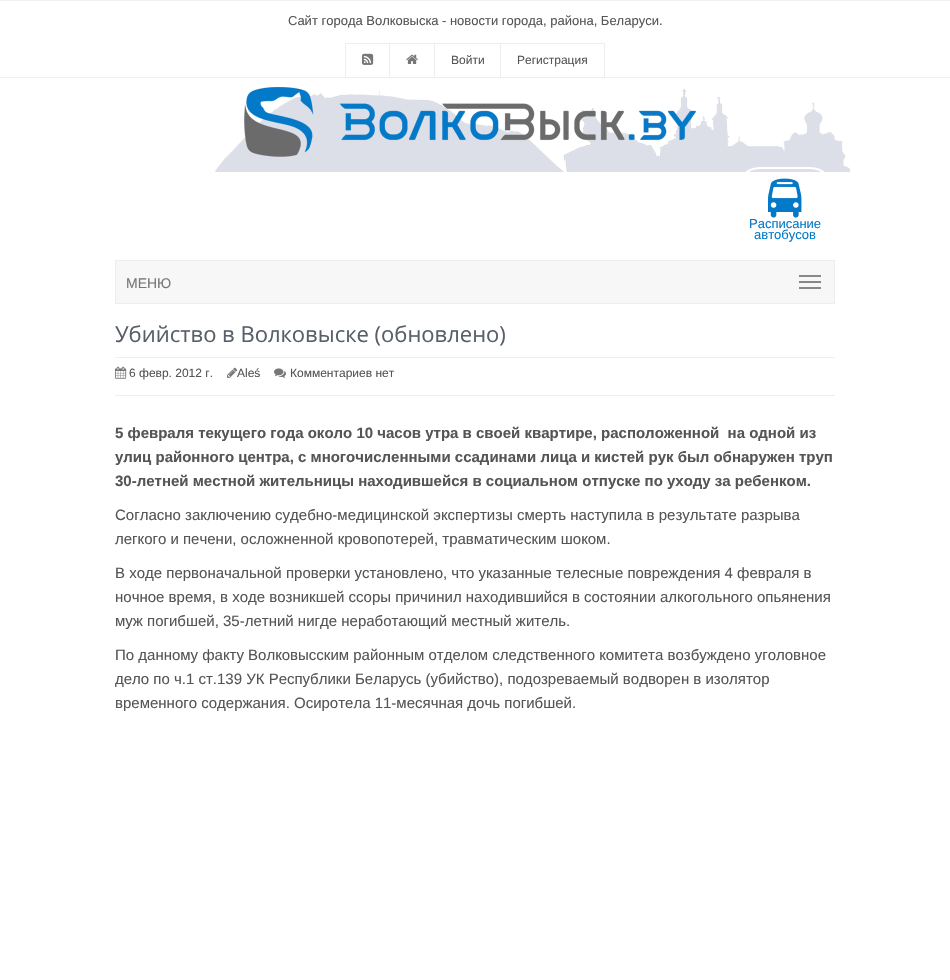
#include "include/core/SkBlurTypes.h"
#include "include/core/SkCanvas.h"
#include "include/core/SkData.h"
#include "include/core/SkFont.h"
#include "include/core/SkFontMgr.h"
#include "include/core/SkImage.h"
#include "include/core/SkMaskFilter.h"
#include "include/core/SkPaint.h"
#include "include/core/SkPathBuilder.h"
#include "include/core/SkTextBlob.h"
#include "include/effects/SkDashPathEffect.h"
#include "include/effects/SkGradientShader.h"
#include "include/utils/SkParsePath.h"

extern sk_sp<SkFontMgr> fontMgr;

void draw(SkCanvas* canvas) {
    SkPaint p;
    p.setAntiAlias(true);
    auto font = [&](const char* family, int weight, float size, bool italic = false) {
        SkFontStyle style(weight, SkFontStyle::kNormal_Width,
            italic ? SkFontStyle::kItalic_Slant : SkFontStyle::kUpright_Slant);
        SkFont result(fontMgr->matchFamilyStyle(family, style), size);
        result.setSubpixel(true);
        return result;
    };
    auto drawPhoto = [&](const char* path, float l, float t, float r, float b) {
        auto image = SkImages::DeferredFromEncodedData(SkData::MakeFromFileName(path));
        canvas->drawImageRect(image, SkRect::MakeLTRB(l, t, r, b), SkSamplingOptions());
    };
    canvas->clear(0xFFFFFFFF);
    p.setColor(0xFFF0F0F0);
    canvas->drawRect(SkRect::MakeLTRB(0, 0, 950, 1), p);
    canvas->drawRect(SkRect::MakeLTRB(0, 77, 950, 78), p);
    auto font1 = font("Liberation Sans", 400, 13);
    p.setColor(0xFF555555);
    canvas->drawString("Сайт города Волковыска - новости города, района, Беларуси.", 288, 25, font1, p);
    p.setStyle(SkPaint::kStroke_Style);
    p.setStrokeWidth(1);
    p.setColor(0xFFEEEEEE);
    canvas->drawRect(SkRect::MakeLTRB(345.5f, 43.5f, 389.5f, 77.5f), p);
    drawPhoto("media/1.png", 362, 53, 374, 65);
    canvas->drawRect(SkRect::MakeLTRB(389.5f, 43.5f, 434.5f, 77.5f), p);
    drawPhoto("media/2.png", 406, 54, 418, 64);
    canvas->drawRect(SkRect::MakeLTRB(434.5f, 43.5f, 500.5f, 77.5f), p);
    auto font2 = font("Liberation Sans", 400, 12);
    p.setStyle(SkPaint::kFill_Style);
    p.setColor(0xFF555555);
    canvas->drawString("Войти", 451, 64, font2, p);
    p.setStyle(SkPaint::kStroke_Style);
    p.setColor(0xFFEEEEEE);
    canvas->drawRect(SkRect::MakeLTRB(500.5f, 43.5f, 604.5f, 77.5f), p);
    p.setStyle(SkPaint::kFill_Style);
    p.setColor(0xFF555555);
    canvas->drawString("Регистрация", 517, 64, font2, p);
    drawPhoto("media/3.png", 215, 88, 850, 172);
    drawPhoto("media/4.png", 244, 87, 696, 157);
    p.setStyle(SkPaint::kStroke_Style);
    p.setStrokeWidth(2);
    p.setColor(0xFFFFFFFF);
    canvas->drawRoundRect(SkRect::MakeLTRB(736, 168, 834, 246), 24, 24, p);
    drawPhoto("media/5.png", 768, 178, 802, 218);
    p.setStyle(SkPaint::kFill_Style);
    p.setColor(0xFF0479C7);
    canvas->drawString("Расписание", 749, 228, font1, p);
    canvas->drawString("автобусов", 754, 239, font1, p);
    p.setColor(0xFFF7F7F7);
    canvas->drawRect(SkRect::MakeLTRB(115.5f, 260.5f, 834.5f, 303.5f), p);
    p.setStyle(SkPaint::kStroke_Style);
    p.setStrokeWidth(1);
    p.setColor(0xFFEEEEEE);
    canvas->drawRect(SkRect::MakeLTRB(115.5f, 260.5f, 834.5f, 303.5f), p);
    auto font3 = font("Liberation Sans", 400, 14);
    p.setStyle(SkPaint::kFill_Style);
    p.setColor(0xFF777777);
    canvas->drawString("МЕНЮ", 126, 288, font3, p);
    {
        const struct { float l, t, r, b; SkColor color; } items[] = {
            {799, 275, 821, 277, 0xFF888888},
            {799, 281, 821, 283, 0xFF888888},
            {799, 287, 821, 289, 0xFF888888},
        };
        for (auto [l, t, r, b, color] : items) {
            p.setColor(color);
            canvas->drawRect(SkRect::MakeLTRB(l, t, r, b), p);
        }
    }
    auto font4 = font("Open Sans", 400, 22);
    p.setColor(0xFF585F69);
    canvas->drawString("Убийство в Волковыске (обновлено)", 115, 342, font4, p);
    p.setColor(0xFFEEEEEE);
    canvas->drawRect(SkRect::MakeLTRB(115, 357, 835, 358), p);
    canvas->drawRect(SkRect::MakeLTRB(115, 395, 835, 396), p);
    drawPhoto("media/6.png", 115, 366, 127, 379);
    p.setColor(0xFF555555);
    canvas->drawString("6 февр. 2012 г.", 129, 377, font2, p);
    drawPhoto("media/7.png", 227, 367, 238, 378);
    canvas->drawString("Aleś", 237, 377, font2, p);
    drawPhoto("media/8.png", 274, 368, 286, 378);
    canvas->drawString("Комментариев нет", 290, 377, font2, p);
    auto font5 = font("Liberation Sans", 700, 15);
    {
        const struct { const char* s; float x, y; } items[] = {
            {"5 февраля текущего года около 10 часов утра в своей квартире, расположенной  на одной из", 115, 438},
            {"улиц районного центра, с многочисленными ссадинами лица и кистей рук был обнаружен труп", 115, 462},
            {"30-летней местной жительницы находившейся в социальном отпуске по уходу за ребенком.", 115, 486},
        };
        for (auto [s, x, y] : items) {
            canvas->drawString(s, x, y, font5, p);
        }
    }
    auto font6 = font("Liberation Sans", 400, 15);
    {
        const struct { const char* s; float x, y; } items[] = {
            {"Согласно заключению судебно-медицинской экспертизы смерть наступила в результате разрыва", 115, 520},
            {"легкого и печени, осложненной кровопотерей, травматическим шоком.", 115, 544},
            {"В ходе первоначальной проверки установлено, что указанные телесные повреждения 4 февраля в", 115, 578},
            {"ночное время, в ходе возникшей ссоры причинил находившийся в состоянии алкогольного опьянения", 115, 602},
            {"муж погибшей, 35-летний нигде неработающий местный житель.", 115, 626},
            {"По данному факту Волковысским районным отделом следственного комитета возбуждено уголовное", 115, 660},
            {"дело по ч.1 ст.139 УК Республики Беларусь (убийство), подозреваемый водворен в изолятор", 115, 684},
            {"временного содержания. Осиротела 11-месячная дочь погибшей.", 115, 708},
        };
        for (auto [s, x, y] : items) {
            canvas->drawString(s, x, y, font6, p);
        }
    }
}
